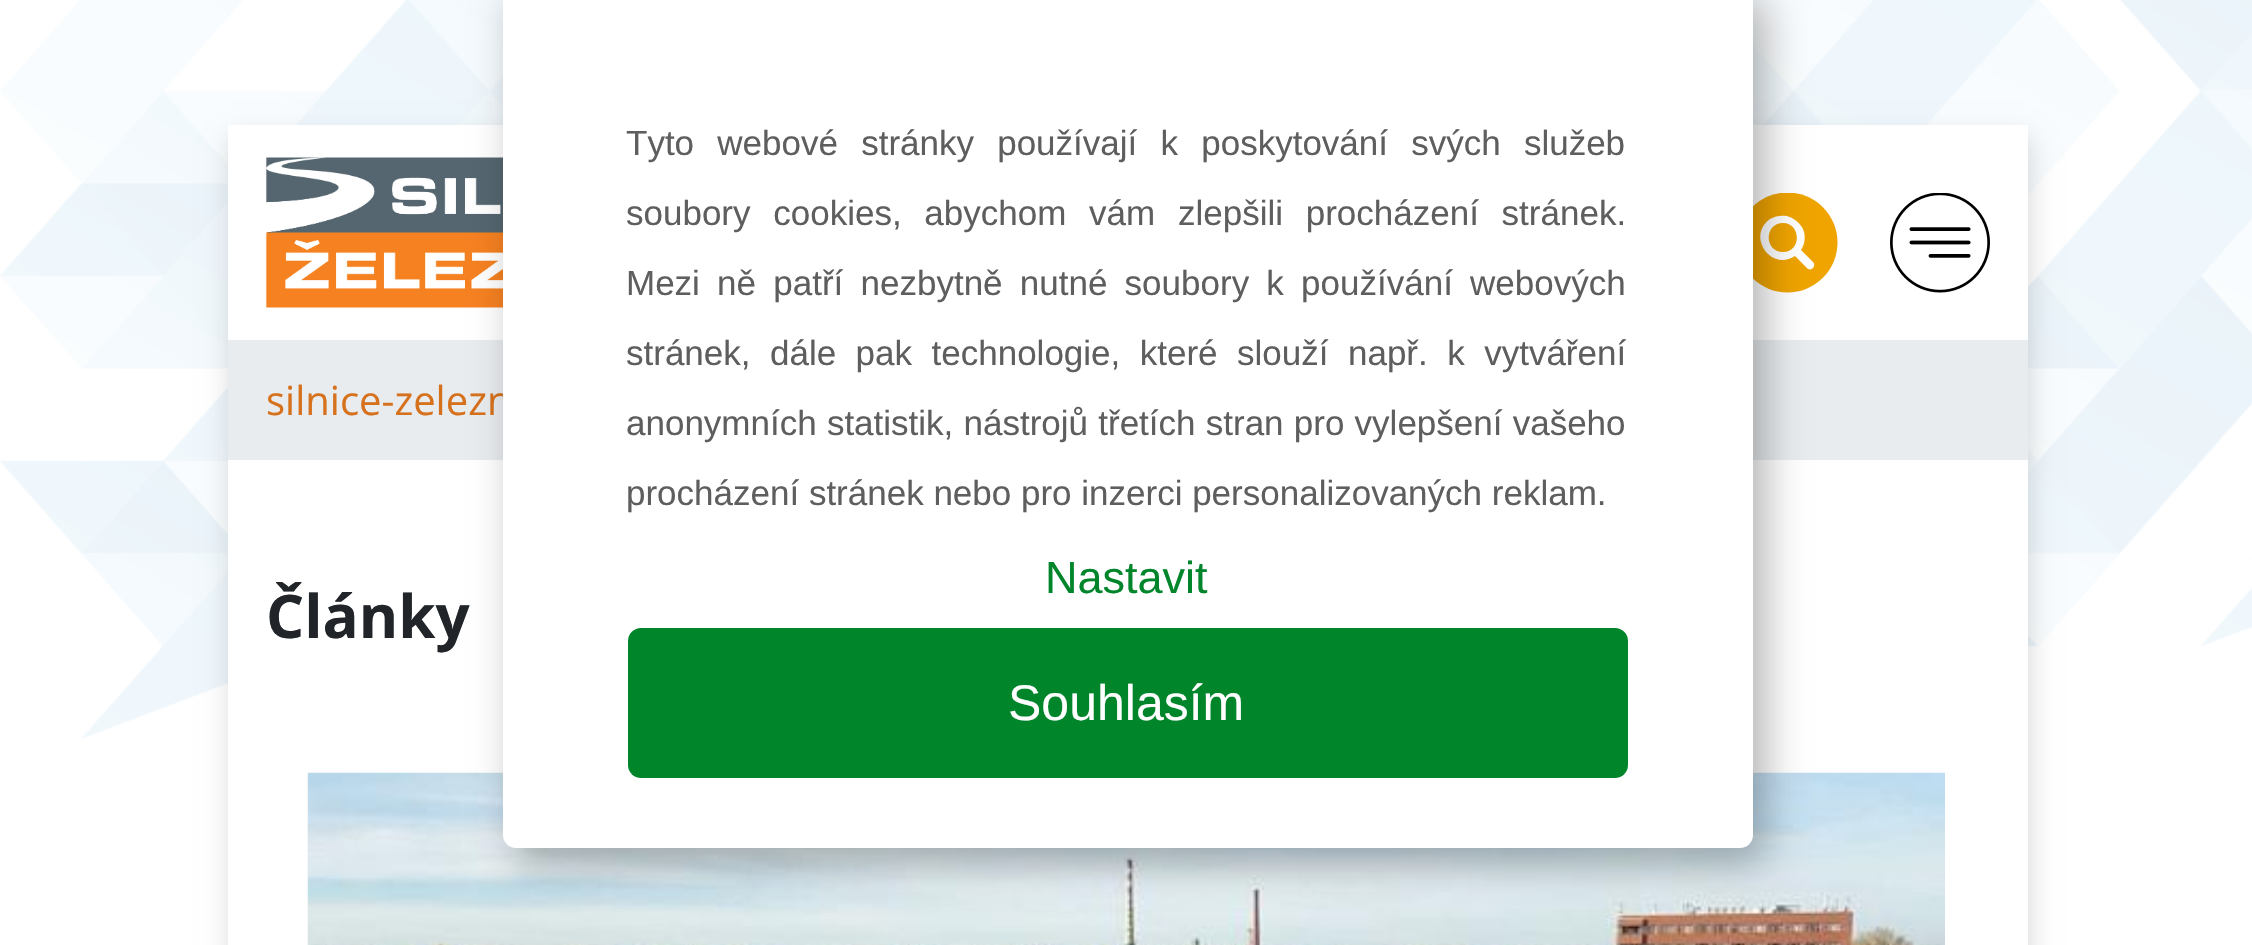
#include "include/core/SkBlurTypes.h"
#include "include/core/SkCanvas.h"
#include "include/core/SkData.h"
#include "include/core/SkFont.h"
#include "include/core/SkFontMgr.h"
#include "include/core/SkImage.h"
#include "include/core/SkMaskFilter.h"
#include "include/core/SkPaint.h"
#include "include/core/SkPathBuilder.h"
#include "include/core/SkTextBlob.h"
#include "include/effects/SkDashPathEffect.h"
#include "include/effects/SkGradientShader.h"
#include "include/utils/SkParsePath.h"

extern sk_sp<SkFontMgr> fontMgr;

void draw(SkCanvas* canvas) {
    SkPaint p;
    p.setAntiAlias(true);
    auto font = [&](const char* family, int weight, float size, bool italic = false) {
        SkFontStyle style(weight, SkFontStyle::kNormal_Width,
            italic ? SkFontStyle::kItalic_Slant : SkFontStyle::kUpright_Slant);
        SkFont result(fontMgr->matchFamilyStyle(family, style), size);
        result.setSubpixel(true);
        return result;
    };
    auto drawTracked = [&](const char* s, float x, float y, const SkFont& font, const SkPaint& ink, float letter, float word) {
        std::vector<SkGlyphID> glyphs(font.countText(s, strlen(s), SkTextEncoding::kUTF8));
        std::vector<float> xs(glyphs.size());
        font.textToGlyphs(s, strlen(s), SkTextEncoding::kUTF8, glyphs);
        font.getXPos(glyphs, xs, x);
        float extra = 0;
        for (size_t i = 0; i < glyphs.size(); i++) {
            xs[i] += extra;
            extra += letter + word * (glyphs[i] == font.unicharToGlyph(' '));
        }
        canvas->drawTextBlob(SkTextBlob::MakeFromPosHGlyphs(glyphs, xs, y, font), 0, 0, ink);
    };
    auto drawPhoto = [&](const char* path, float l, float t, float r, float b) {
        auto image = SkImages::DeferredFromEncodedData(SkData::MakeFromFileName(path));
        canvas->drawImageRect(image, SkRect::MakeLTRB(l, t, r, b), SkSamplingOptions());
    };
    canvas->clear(0xFFFFFFFF);
    drawPhoto("media/1.png", 0, 0, 2252, 739);
    p.setColor(0x26000000);
    p.setMaskFilter(SkMaskFilter::MakeBlur(kNormal_SkBlurStyle, 12.5f));
    canvas->drawRect(SkRect::MakeLTRB(230, 138, 2030, 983), p);
    p.setMaskFilter(nullptr);
    p.setColor(0xFFFFFFFF);
    canvas->drawRect(SkRect::MakeLTRB(228, 125, 2028, 945), p);
    drawPhoto("media/2.png", 265, 157, 503, 308);
    canvas->save();
    canvas->clipRect(SkRect::MakeLTRB(1738, 193, 1838, 293));
    p.setColor(0xFFEFA400);
    canvas->drawCircle(1787.5f, 242.5f, 50, p);
    canvas->restore();
    p.setColor(0xFFFFFFFF);
    canvas->drawPath(SkPathBuilder().moveTo(1813, 262).lineTo(1801, 250).cubicTo(1805, 244, 1806, 236, 1803, 229).cubicTo(1800, 223, 1794, 218, 1787, 216).cubicTo(1781, 215, 1775, 216, 1770, 219).cubicTo(1746, 236, 1771, 272, 1795, 256).lineTo(1808, 269).cubicTo(1813, 271, 1816, 265, 1813, 262).close().moveTo(1783, 252).cubicTo(1764, 252, 1764, 223, 1783, 223).cubicTo(1801, 223, 1802, 252, 1783, 252).close().detach(), p);
    drawPhoto("media/3.png", 1890, 193, 1990, 293);
    p.setColor(0xFFE9ECEF);
    canvas->drawRect(SkRect::MakeLTRB(228, 340, 2028, 460), p);
    auto font1 = font("Open Sans", 400, 40);
    p.setColor(0xFFD6711D);
    canvas->drawString("silnice-zelezn", 266, 415, font1, p);
    auto font2 = font("Open Sans", 700, 60);
    p.setColor(0xFF212529);
    canvas->drawString("Články", 266, 638, font2, p);
    drawPhoto("media/4.png", 307, 772, 1945, 945);
    p.setColor(0x4D000000);
    p.setMaskFilter(SkMaskFilter::MakeBlur(kNormal_SkBlurStyle, 21));
    canvas->drawRoundRect(SkRect::MakeLTRB(515, -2, 1765, 863), 13, 13, p);
    p.setMaskFilter(nullptr);
    p.setColor(0xFFFFFFFF);
    canvas->drawRoundRect(SkRect::MakeLTRB(503, -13, 1753, 848), 13, 13, p);
    auto font3 = font("Liberation Sans", 400, 35);
    p.setColor(0xFF5E5E5E);
    drawTracked("Tyto webové stránky používají k poskytování svých služeb", 626, 155, font3, p, 0, 13.5f);
    drawTracked("soubory cookies, abychom vám zlepšili procházení stránek.", 626, 225, font3, p, 0, 13);
    drawTracked("Mezi ně patří nezbytně nutné soubory k používání webových", 626, 295, font3, p, 0, 7.5f);
    drawTracked("stránek, dále pak technologie, které slouží např. k vytváření", 626, 365, font3, p, 0, 9.75f);
    drawTracked("anonymních statistik, nástrojů třetích stran pro vylepšení vašeho", 626, 435, font3, p, 0, 0.5f);
    canvas->drawString("procházení stránek nebo pro inzerci personalizovaných reklam.", 626, 505, font3, p);
    auto font4 = font("Liberation Sans", 400, 45);
    p.setColor(0xFF00852B);
    canvas->drawString("Nastavit", 1045, 593, font4, p);
    canvas->drawRoundRect(SkRect::MakeLTRB(628, 628, 1628, 778), 13, 13, p);
    auto font5 = font("Liberation Sans", 400, 50);
    p.setColor(0xFFFFFFFF);
    canvas->drawString("Souhlasím", 1008, 720, font5, p);
}
